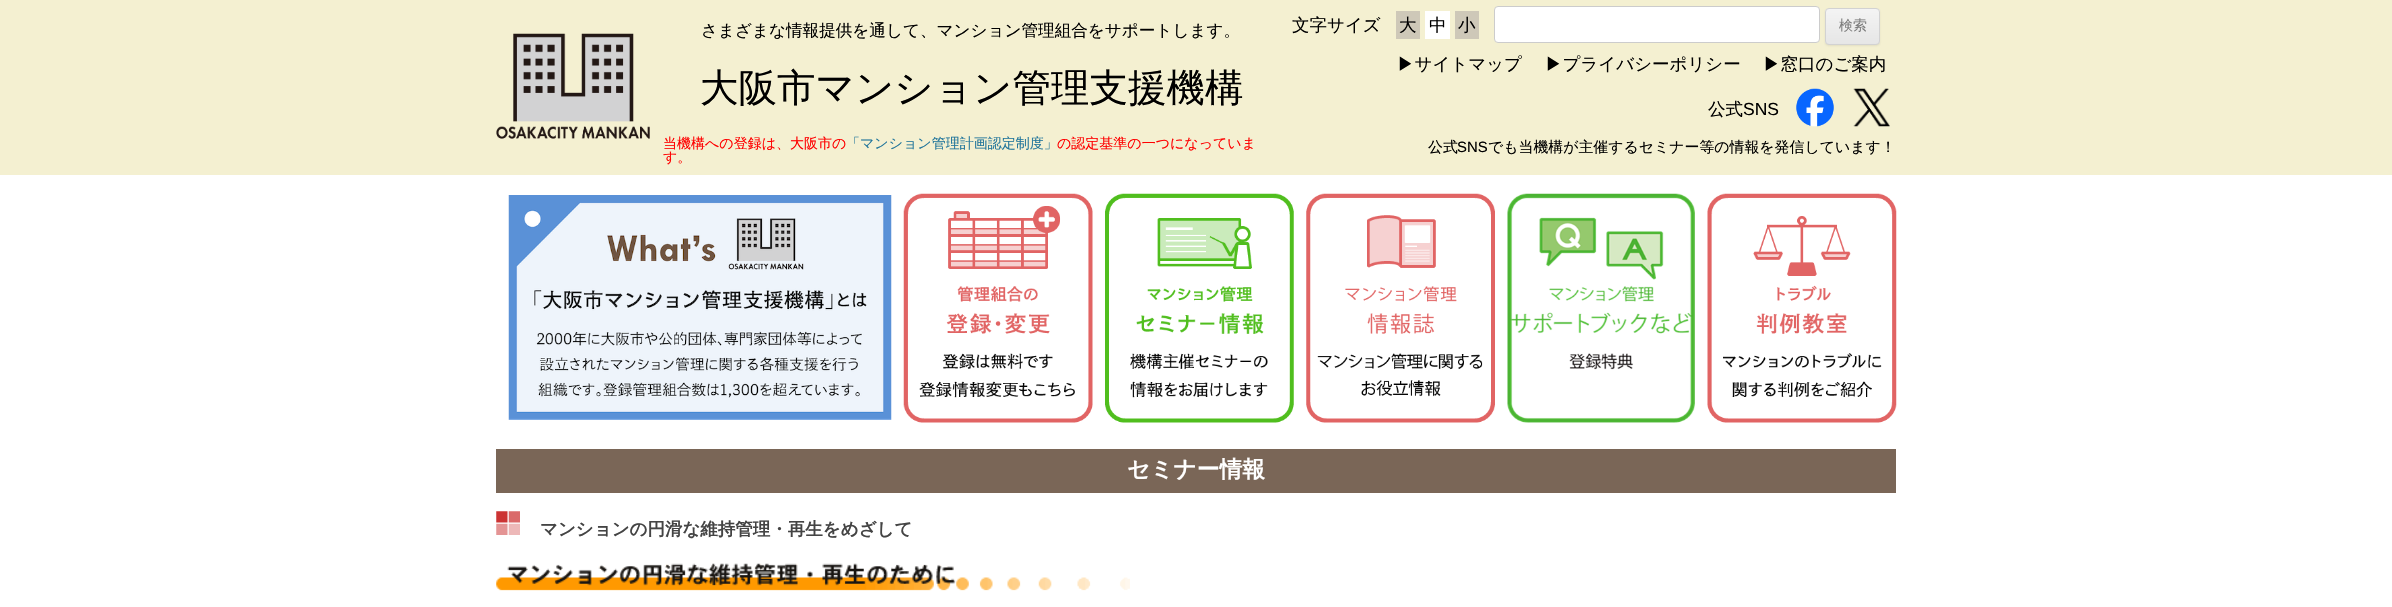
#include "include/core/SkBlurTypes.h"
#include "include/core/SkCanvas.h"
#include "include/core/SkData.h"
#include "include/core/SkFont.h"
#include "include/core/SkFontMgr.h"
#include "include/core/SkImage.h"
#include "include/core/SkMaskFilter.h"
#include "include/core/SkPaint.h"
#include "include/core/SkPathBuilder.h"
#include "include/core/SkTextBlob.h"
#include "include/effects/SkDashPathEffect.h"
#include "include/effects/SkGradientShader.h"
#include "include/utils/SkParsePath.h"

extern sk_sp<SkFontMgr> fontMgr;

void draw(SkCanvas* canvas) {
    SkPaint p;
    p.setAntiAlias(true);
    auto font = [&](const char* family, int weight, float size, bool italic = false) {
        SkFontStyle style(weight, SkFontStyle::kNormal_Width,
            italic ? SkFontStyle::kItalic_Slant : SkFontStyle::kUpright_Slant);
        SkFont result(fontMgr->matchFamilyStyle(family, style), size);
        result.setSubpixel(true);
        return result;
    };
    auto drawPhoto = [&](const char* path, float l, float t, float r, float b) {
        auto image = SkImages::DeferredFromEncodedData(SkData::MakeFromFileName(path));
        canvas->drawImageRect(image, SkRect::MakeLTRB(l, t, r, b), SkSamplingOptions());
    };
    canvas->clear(0xFFFFFFFF);
    p.setColor(0xFFF4F0D1);
    canvas->drawRect(SkRect::MakeLTRB(0, 0, 2392, 175), p);
    drawPhoto("media/1.png", 496, 33, 650, 139);
    auto font1 = font("WenQuanYi Zen Hei", 500, 16.6f);
    p.setColor(0xFF000000);
    canvas->drawString("さまざまな情報提供を通して、マンション管理組合をサポートします。", 701, 36, font1, p);
    auto font2 = font("WenQuanYi Zen Hei", 500, 38.5f);
    canvas->drawString("大阪市マンション管理支援機構", 700, 101, font2, p);
    auto font3 = font("WenQuanYi Zen Hei", 500, 14);
    p.setColor(0xFFFF0000);
    canvas->drawString("当機構への登録は、大阪市の", 663, 148, font3, p);
    p.setColor(0xFF21759B);
    canvas->drawString("「マンション管理計画認定制度」", 846, 148, font3, p);
    p.setColor(0xFFFF0000);
    canvas->drawString("の認定基準の一つになっていま", 1057, 148, font3, p);
    canvas->drawString("す。", 663, 162, font3, p);
    auto font4 = font("WenQuanYi Zen Hei", 500, 17.5f);
    p.setColor(0xFF000000);
    canvas->drawString("文字サイズ", 1292, 31, font4, p);
    p.setColor(0xFFCEC8B8);
    canvas->drawRect(SkRect::MakeLTRB(1396, 11, 1420, 39), p);
    p.setColor(0xFF000000);
    canvas->drawString("大", 1399, 31, font4, p);
    p.setColor(0xFFFFFFFF);
    canvas->drawRect(SkRect::MakeLTRB(1425, 11, 1450, 39), p);
    p.setColor(0xFF000000);
    canvas->drawString("中", 1429, 31, font4, p);
    p.setColor(0xFFCEC8B8);
    canvas->drawRect(SkRect::MakeLTRB(1455, 11, 1479, 39), p);
    p.setColor(0xFF000000);
    canvas->drawString("小", 1458, 31, font4, p);
    p.setColor(0xFFFFFFFF);
    canvas->drawRoundRect(SkRect::MakeLTRB(1494.5f, 6.5f, 1819.5f, 42.5f), 3.5f, 3.5f, p);
    p.setStyle(SkPaint::kStroke_Style);
    p.setStrokeWidth(1);
    p.setColor(0xFFCCCCCC);
    canvas->drawRoundRect(SkRect::MakeLTRB(1494.5f, 6.5f, 1819.5f, 42.5f), 3.5f, 3.5f, p);
    p.setStyle(SkPaint::kFill_Style);
    p.setColor(0x1A404040);
    p.setMaskFilter(SkMaskFilter::MakeBlur(kNormal_SkBlurStyle, 1));
    canvas->drawRoundRect(SkRect::MakeLTRB(1825, 9, 1880, 46), 4, 4, p);
    p.setMaskFilter(nullptr);
    canvas->save();
    canvas->clipPath(SkPathBuilder().moveTo(1829, 8).lineTo(1876, 8).cubicTo(1878, 8, 1880, 10, 1880, 12).lineTo(1880, 41).cubicTo(1880, 43, 1878, 45, 1876, 45).lineTo(1829, 45).cubicTo(1827, 45, 1825, 43, 1825, 41).lineTo(1825, 12).cubicTo(1825, 10, 1827, 8, 1829, 8).close().detach(), true);
    {
        const SkColor colors[] = {0xFFF4F4F4, 0xFFE6E6E6};
        const float stops[] = {0, 1};
        const SkPoint ends[] = {{1853, 9}, {1853, 44}};
        p.setShader(SkGradientShader::MakeLinear(ends, colors, stops, 2, SkTileMode::kClamp));
        p.setAlpha(255);
    }
    canvas->drawRect(SkRect::MakeLTRB(1825, 9, 1880, 44), p);
    canvas->restore();
    p.setStyle(SkPaint::kStroke_Style);
    p.setShader(nullptr);
    p.setColor(0xFFD2D2D2);
    canvas->drawRoundRect(SkRect::MakeLTRB(1825.5f, 8.5f, 1879.5f, 44.5f), 3.5f, 3.5f, p);
    p.setStyle(SkPaint::kFill_Style);
    p.setColor(0xFF7C7C7C);
    canvas->drawString("検索", 1839, 30, font3, p);
    p.setColor(0xFF000000);
    {
        const struct { const char* s; float x, y; } items[] = {
            {"▶サイトマップ", 1397, 70},
            {"▶プライバシーポリシー", 1545, 70},
            {"▶窓口のご案内", 1763, 70},
            {"公式", 1708, 115},
        };
        for (auto [s, x, y] : items) {
            canvas->drawString(s, x, y, font4, p);
        }
    }
    auto font5 = font("Liberation Sans", 400, 17.5f);
    canvas->drawString("SNS", 1743, 115, font5, p);
    drawPhoto("media/2.png", 1796, 88, 1834, 127);
    drawPhoto("media/3.png", 1853, 88, 1890, 127);
    auto font6 = font("WenQuanYi Zen Hei", 500, 14.9f);
    canvas->drawString("公式", 1428, 152, font6, p);
    auto font7 = font("Liberation Sans", 400, 14.9f);
    canvas->drawString("SNS", 1457, 152, font7, p);
    canvas->drawString("でも当機構が主催するセミナー等の情報を発信しています！", 1488, 152, font6, p);
    drawPhoto("media/4.png", 508, 195, 892, 420);
    drawPhoto("media/5.png", 903, 193, 1093, 423);
    drawPhoto("media/6.png", 1105, 193, 1294, 423);
    drawPhoto("media/7.png", 1306, 193, 1495, 423);
    drawPhoto("media/8.png", 1507, 193, 1695, 423);
    drawPhoto("media/9.png", 1707, 193, 1897, 423);
    p.setColor(0xFF7A6657);
    canvas->drawRect(SkRect::MakeLTRB(496, 449, 1896, 493), p);
    auto font8 = font("WenQuanYi Zen Hei", 700, 22.75f);
    p.setColor(0xFFFFFFFF);
    canvas->drawString("セミナー情報", 1127, 477, font8, p);
    drawPhoto("media/10.png", 496, 511, 520, 535);
    auto font9 = font("WenQuanYi Zen Hei", 700, 17.5f);
    p.setColor(0xFF444444);
    canvas->drawString("マンションの円滑な維持管理・再生をめざして", 540, 535, font9, p);
    drawPhoto("media/11.png", 496, 563, 1130, 591);
}
